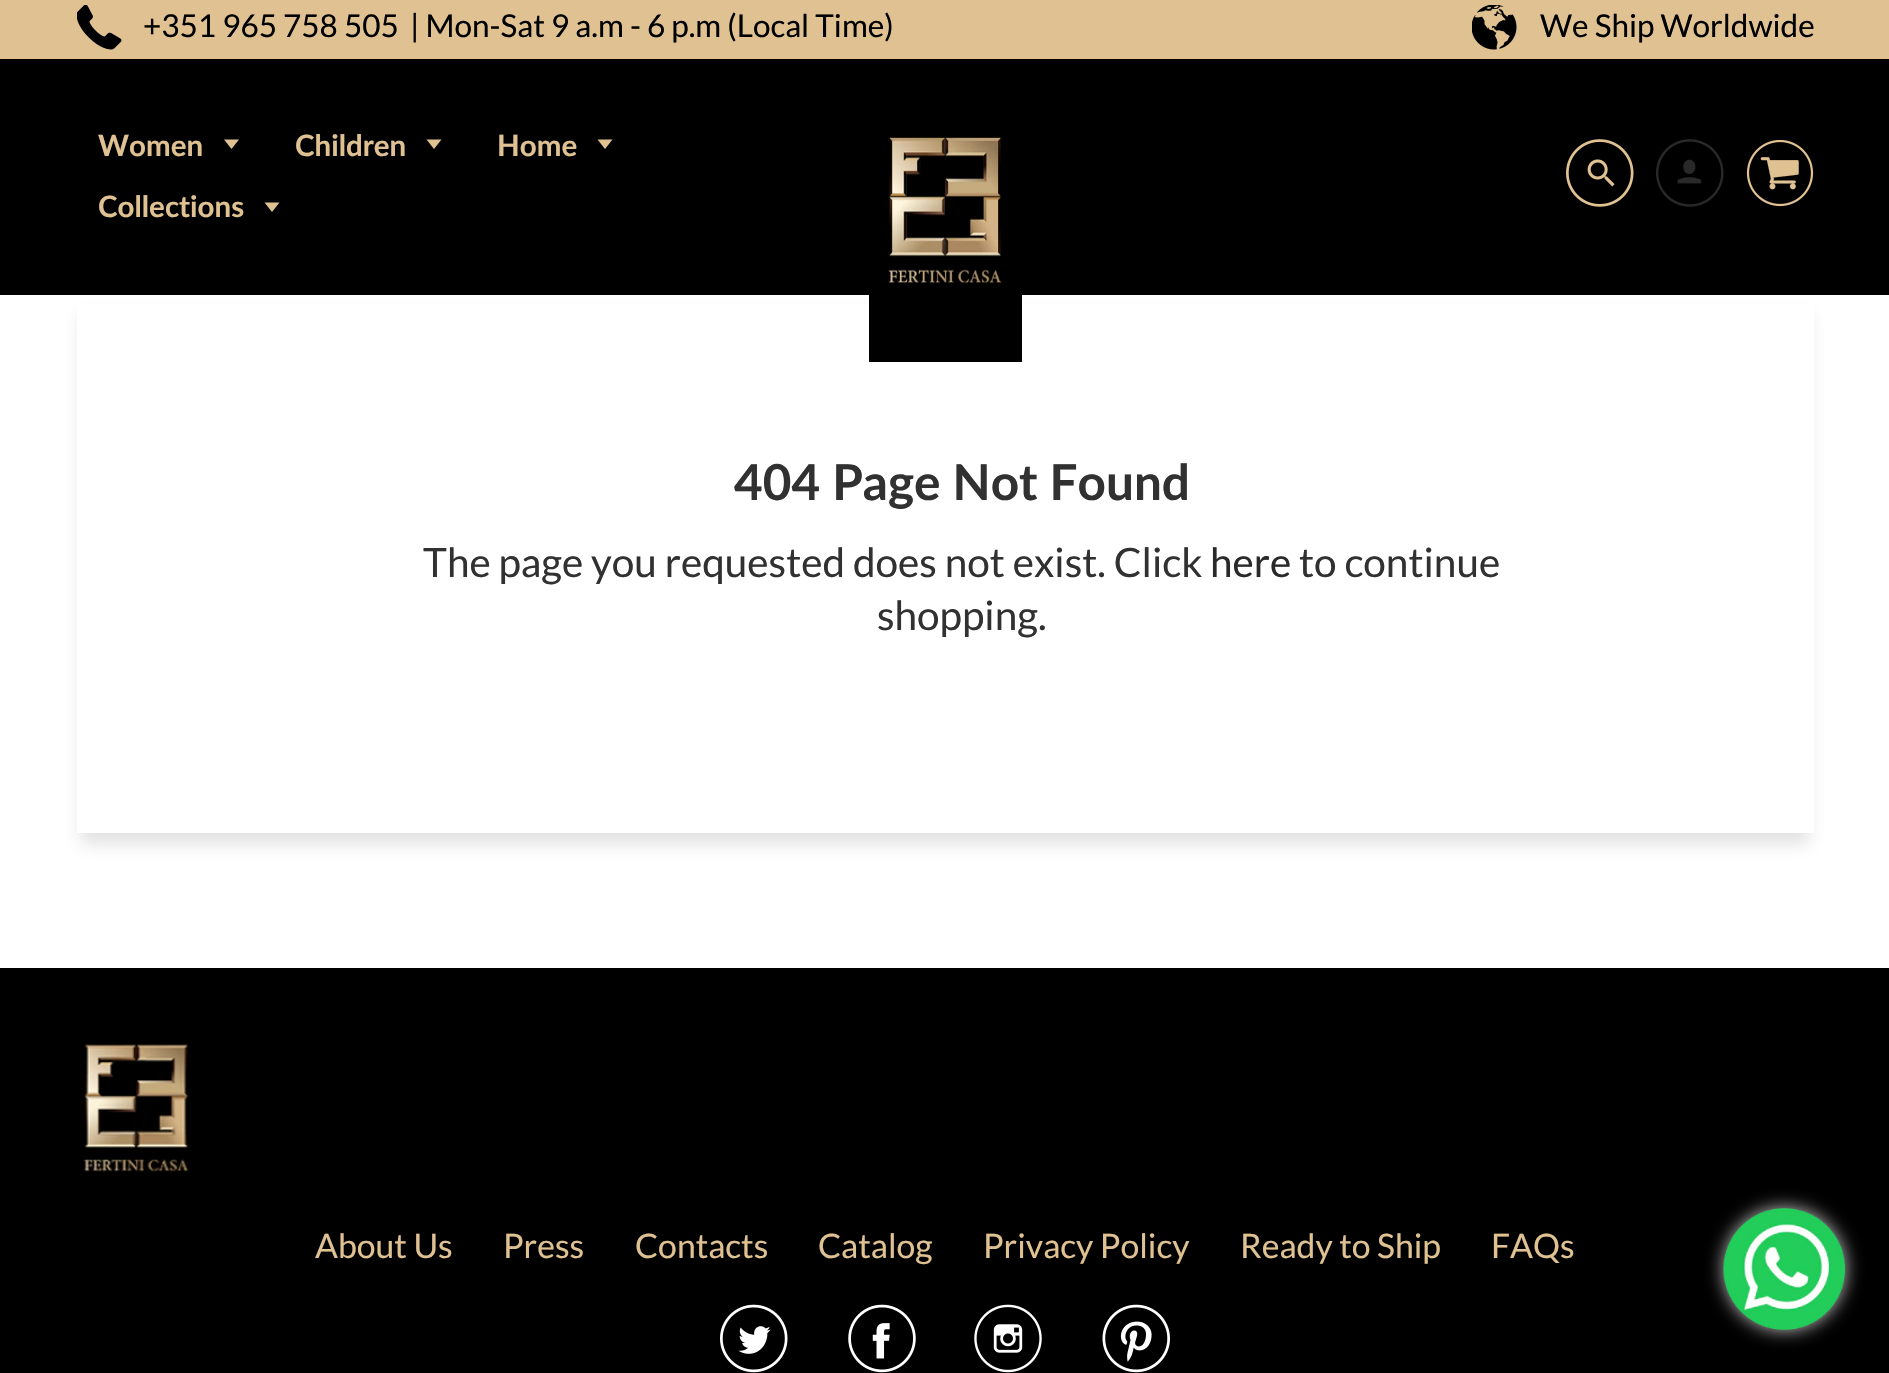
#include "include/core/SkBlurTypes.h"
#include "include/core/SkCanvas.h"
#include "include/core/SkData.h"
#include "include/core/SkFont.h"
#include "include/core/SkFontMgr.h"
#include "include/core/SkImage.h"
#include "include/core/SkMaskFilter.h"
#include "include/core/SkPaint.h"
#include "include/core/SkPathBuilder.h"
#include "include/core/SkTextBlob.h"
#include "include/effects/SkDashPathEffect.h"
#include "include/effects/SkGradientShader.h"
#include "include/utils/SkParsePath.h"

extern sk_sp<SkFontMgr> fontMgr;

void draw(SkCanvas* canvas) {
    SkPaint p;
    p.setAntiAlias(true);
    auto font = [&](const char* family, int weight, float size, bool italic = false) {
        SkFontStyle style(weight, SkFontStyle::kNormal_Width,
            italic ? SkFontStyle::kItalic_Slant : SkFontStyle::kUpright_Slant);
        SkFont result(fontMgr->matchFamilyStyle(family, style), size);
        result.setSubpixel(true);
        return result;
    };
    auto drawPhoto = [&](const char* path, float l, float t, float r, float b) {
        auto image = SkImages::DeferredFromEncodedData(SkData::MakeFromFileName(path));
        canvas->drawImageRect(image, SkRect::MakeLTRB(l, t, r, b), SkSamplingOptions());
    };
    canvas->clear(0xFFFFFFFF);
    p.setColor(0xFFE0C192);
    canvas->drawRect(SkRect::MakeLTRB(0, 0, 1889, 59), p);
    drawPhoto("media/1.png", 77, 5, 122, 50);
    auto font1 = font("Lato", 400, 31.5f);
    p.setColor(0xFF000000);
    canvas->drawString("+351 965 758 505", 143, 37, font1, p);
    canvas->drawString("| Mon-Sat 9 a.m - 6 p.m (Local Time)", 410, 37, font1, p);
    drawPhoto("media/2.png", 1472, 5, 1517, 50);
    canvas->drawString("We Ship Worldwide", 1540, 37, font1, p);
    p.setColor(0x52A3A3A3);
    p.setMaskFilter(SkMaskFilter::MakeBlur(kNormal_SkBlurStyle, 8));
    canvas->drawRect(SkRect::MakeLTRB(81, 315, 1809, 844), p);
    p.setMaskFilter(nullptr);
    p.setColor(0xFF000000);
    canvas->drawRect(SkRect::MakeLTRB(0, 59, 1889, 295), p);
    auto font2 = font("Lato", 700, 29.5f);
    p.setColor(0xFFE0C192);
    canvas->drawString("Women", 98, 156, font2, p);
    canvas->drawPath(SkPathBuilder().moveTo(224, 139.5f).lineTo(231.5f, 149).lineTo(239, 139.5f).close().detach(), p);
    canvas->drawString("Children", 295, 156, font2, p);
    canvas->drawPath(SkPathBuilder().moveTo(426.5f, 139.5f).lineTo(434, 149).lineTo(441.5f, 139.5f).close().detach(), p);
    canvas->drawString("Home", 497, 156, font2, p);
    canvas->drawPath(SkPathBuilder().moveTo(597.5f, 139.5f).lineTo(605, 149).lineTo(612.5f, 139.5f).close().detach(), p);
    canvas->drawString("Collections", 98, 217, font2, p);
    canvas->drawPath(SkPathBuilder().moveTo(264.5f, 202.5f).lineTo(272, 212).lineTo(279.5f, 202.5f).close().detach(), p);
    p.setColor(0xFFFFFFFF);
    canvas->drawRect(SkRect::MakeLTRB(77, 304, 1814, 833), p);
    p.setColor(0xFF000000);
    canvas->drawRect(SkRect::MakeLTRB(869, 295, 1022, 362), p);
    drawPhoto("media/3.png", 888, 137, 1003, 286);
    drawPhoto("media/4.png", 1566, 139, 1634, 207);
    drawPhoto("media/5.png", 1656, 139, 1724, 207);
    drawPhoto("media/6.png", 1746, 140, 1814, 207);
    auto font3 = font("Lato", 700, 49.5f);
    p.setColor(0xFF313131);
    canvas->drawString("404 Page Not Found", 734, 500, font3, p);
    auto font4 = font("Lato", 400, 40.5f);
    canvas->drawString("The page you requested does not exist. Click", 423, 577, font4, p);
    p.setColor(0xFF292929);
    canvas->drawString("here", 1210, 577, font4, p);
    p.setColor(0xFF313131);
    canvas->drawString("to continue", 1299, 577, font4, p);
    canvas->drawString("shopping.", 877, 630, font4, p);
    p.setColor(0xFF000000);
    canvas->drawRect(SkRect::MakeLTRB(0, 968, 1889, 1373), p);
    drawPhoto("media/7.png", 83, 1044, 193, 1172);
    auto font5 = font("Lato", 400, 33.75f);
    p.setColor(0xFFE0C192);
    {
        const struct { const char* s; float x, y; } items[] = {
            {"About Us", 315, 1258},
            {"Press", 503, 1258},
            {"Contacts", 635, 1258},
            {"Catalog", 818, 1258},
            {"Privacy Policy", 983, 1258},
            {"Ready to Ship", 1240, 1258},
            {"FAQs", 1491, 1258},
        };
        for (auto [s, x, y] : items) {
            canvas->drawString(s, x, y, font5, p);
        }
    }
    drawPhoto("media/8.png", 720, 1304, 788, 1373);
    drawPhoto("media/9.png", 848, 1304, 916, 1373);
    drawPhoto("media/10.png", 974, 1304, 1042, 1373);
    drawPhoto("media/11.png", 1102, 1304, 1170, 1373);
    p.setColor(0xFFC2C2C2);
    p.setMaskFilter(SkMaskFilter::MakeBlur(kNormal_SkBlurStyle, 9));
    canvas->drawRoundRect(SkRect::MakeLTRB(1724, 1208, 1845, 1330), 60.5f, 60.5f, p);
    p.setMaskFilter(nullptr);
    drawPhoto("media/12.png", 1723, 1208, 1845, 1330);
}
